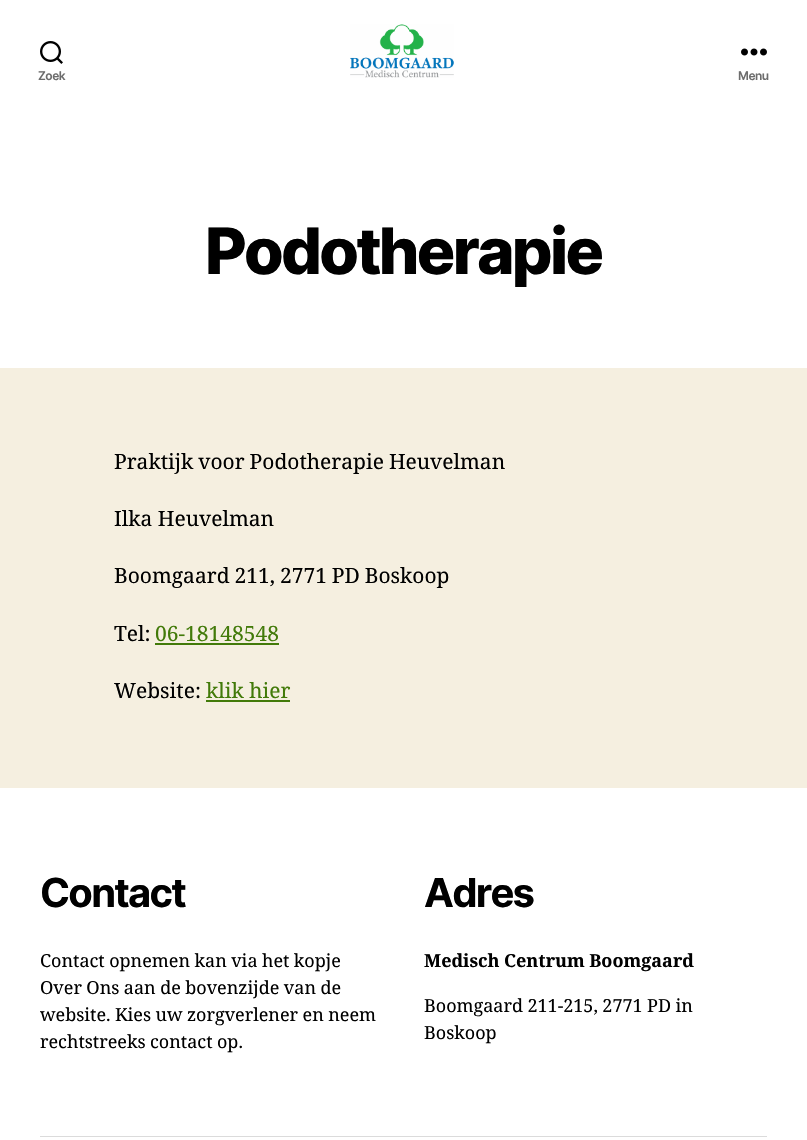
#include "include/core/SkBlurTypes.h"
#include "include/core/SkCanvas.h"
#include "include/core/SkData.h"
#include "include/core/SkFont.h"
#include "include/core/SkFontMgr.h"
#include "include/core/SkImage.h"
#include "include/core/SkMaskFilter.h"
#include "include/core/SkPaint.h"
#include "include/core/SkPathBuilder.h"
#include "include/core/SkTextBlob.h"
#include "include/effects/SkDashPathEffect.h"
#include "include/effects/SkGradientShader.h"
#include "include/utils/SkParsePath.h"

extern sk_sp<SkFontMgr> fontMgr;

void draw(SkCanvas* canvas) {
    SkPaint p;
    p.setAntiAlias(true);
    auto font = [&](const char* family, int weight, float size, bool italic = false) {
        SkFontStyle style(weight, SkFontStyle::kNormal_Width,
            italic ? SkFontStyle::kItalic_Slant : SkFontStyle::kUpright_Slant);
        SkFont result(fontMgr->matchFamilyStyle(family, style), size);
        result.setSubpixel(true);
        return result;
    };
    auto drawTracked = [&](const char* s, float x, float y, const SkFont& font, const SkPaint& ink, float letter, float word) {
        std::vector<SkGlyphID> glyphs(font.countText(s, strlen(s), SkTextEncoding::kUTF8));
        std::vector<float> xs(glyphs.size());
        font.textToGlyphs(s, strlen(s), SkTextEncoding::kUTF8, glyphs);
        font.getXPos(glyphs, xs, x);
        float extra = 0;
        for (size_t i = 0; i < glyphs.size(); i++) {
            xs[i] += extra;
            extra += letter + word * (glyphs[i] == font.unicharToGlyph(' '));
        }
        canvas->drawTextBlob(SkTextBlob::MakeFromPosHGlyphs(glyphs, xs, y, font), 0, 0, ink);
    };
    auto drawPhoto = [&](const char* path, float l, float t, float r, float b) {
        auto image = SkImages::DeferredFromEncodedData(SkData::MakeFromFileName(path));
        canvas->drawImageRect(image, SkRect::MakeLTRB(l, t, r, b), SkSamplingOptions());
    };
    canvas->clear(0xFFF5EFE0);
    p.setColor(0xFFFFFFFF);
    canvas->drawRect(SkRect::MakeLTRB(0, 0, 807, 368), p);
    drawPhoto("media/1.png", 40, 41, 63, 64);
    auto font1 = font("Inter", 600, 12);
    p.setColor(0xFF6D6D6D);
    drawTracked("Zoek", 38, 80, font1, p, -0.5f, 0);
    drawPhoto("media/2.png", 350, 24, 454, 78);
    drawPhoto("media/3.png", 741, 48, 767, 56);
    drawTracked("Menu", 738, 80, font1, p, -0.5f, 0);
    auto font2 = font("Inter", 800, 64);
    p.setColor(0xFF000000);
    drawTracked("Podotherapie", 205, 274, font2, p, -2.7f, 0);
    auto font3 = font("Noto Serif", 400, 21);
    drawTracked("Praktijk voor Podotherapie Heuvelman", 114, 469, font3, p, 0, -0.5f);
    canvas->drawString("Ilka Heuvelman", 114, 526, font3, p);
    drawTracked("Boomgaard 211, 2771 PD Boskoop", 114, 583, font3, p, 0, -0.5f);
    canvas->drawString("Tel:", 114, 641, font3, p);
    p.setColor(0xFF427A09);
    canvas->drawString("06-18148548", 155, 641, font3, p);
    canvas->drawRect(SkRect::MakeLTRB(155, 643, 279, 645), p);
    p.setColor(0xFF000000);
    canvas->drawString("Website:", 114, 698, font3, p);
    p.setColor(0xFF427A09);
    canvas->drawString("klik hier", 206, 698, font3, p);
    {
        const struct { float l, t, r, b; SkColor color; } items[] = {
            {206, 700, 290, 702, 0xFF427A09},
            {0, 788, 807, 1140, 0xFFFFFFFF},
            {40, 1136, 767, 1137, 0xFFDBDBDB},
        };
        for (auto [l, t, r, b, color] : items) {
            p.setColor(color);
            canvas->drawRect(SkRect::MakeLTRB(l, t, r, b), p);
        }
    }
    auto font4 = font("Inter", 700, 40);
    p.setColor(0xFF000000);
    drawTracked("Contact", 40, 907, font4, p, -1.75f, 0);
    auto font5 = font("Noto Serif", 400, 18);
    {
        const struct { const char* s; float x, y; } items[] = {
            {"Contact opnemen kan via het kopje", 40, 967},
            {"Over Ons aan de bovenzijde van de", 40, 994},
            {"website. Kies uw zorgverlener en neem", 40, 1021},
            {"rechtstreeks contact op.", 40, 1048},
        };
        for (auto [s, x, y] : items) {
            drawTracked(s, x, y, font5, p, 0, -0.25f);
        }
    }
    drawTracked("Adres", 424, 907, font4, p, -1.75f, 0);
    auto font6 = font("Noto Serif", 700, 18);
    drawTracked("Medisch Centrum Boomgaard", 424, 967, font6, p, 0, -0.25f);
    drawTracked("Boomgaard 211-215, 2771 PD in", 424, 1012, font5, p, 0, -0.25f);
    canvas->drawString("Boskoop", 424, 1039, font5, p);
}
